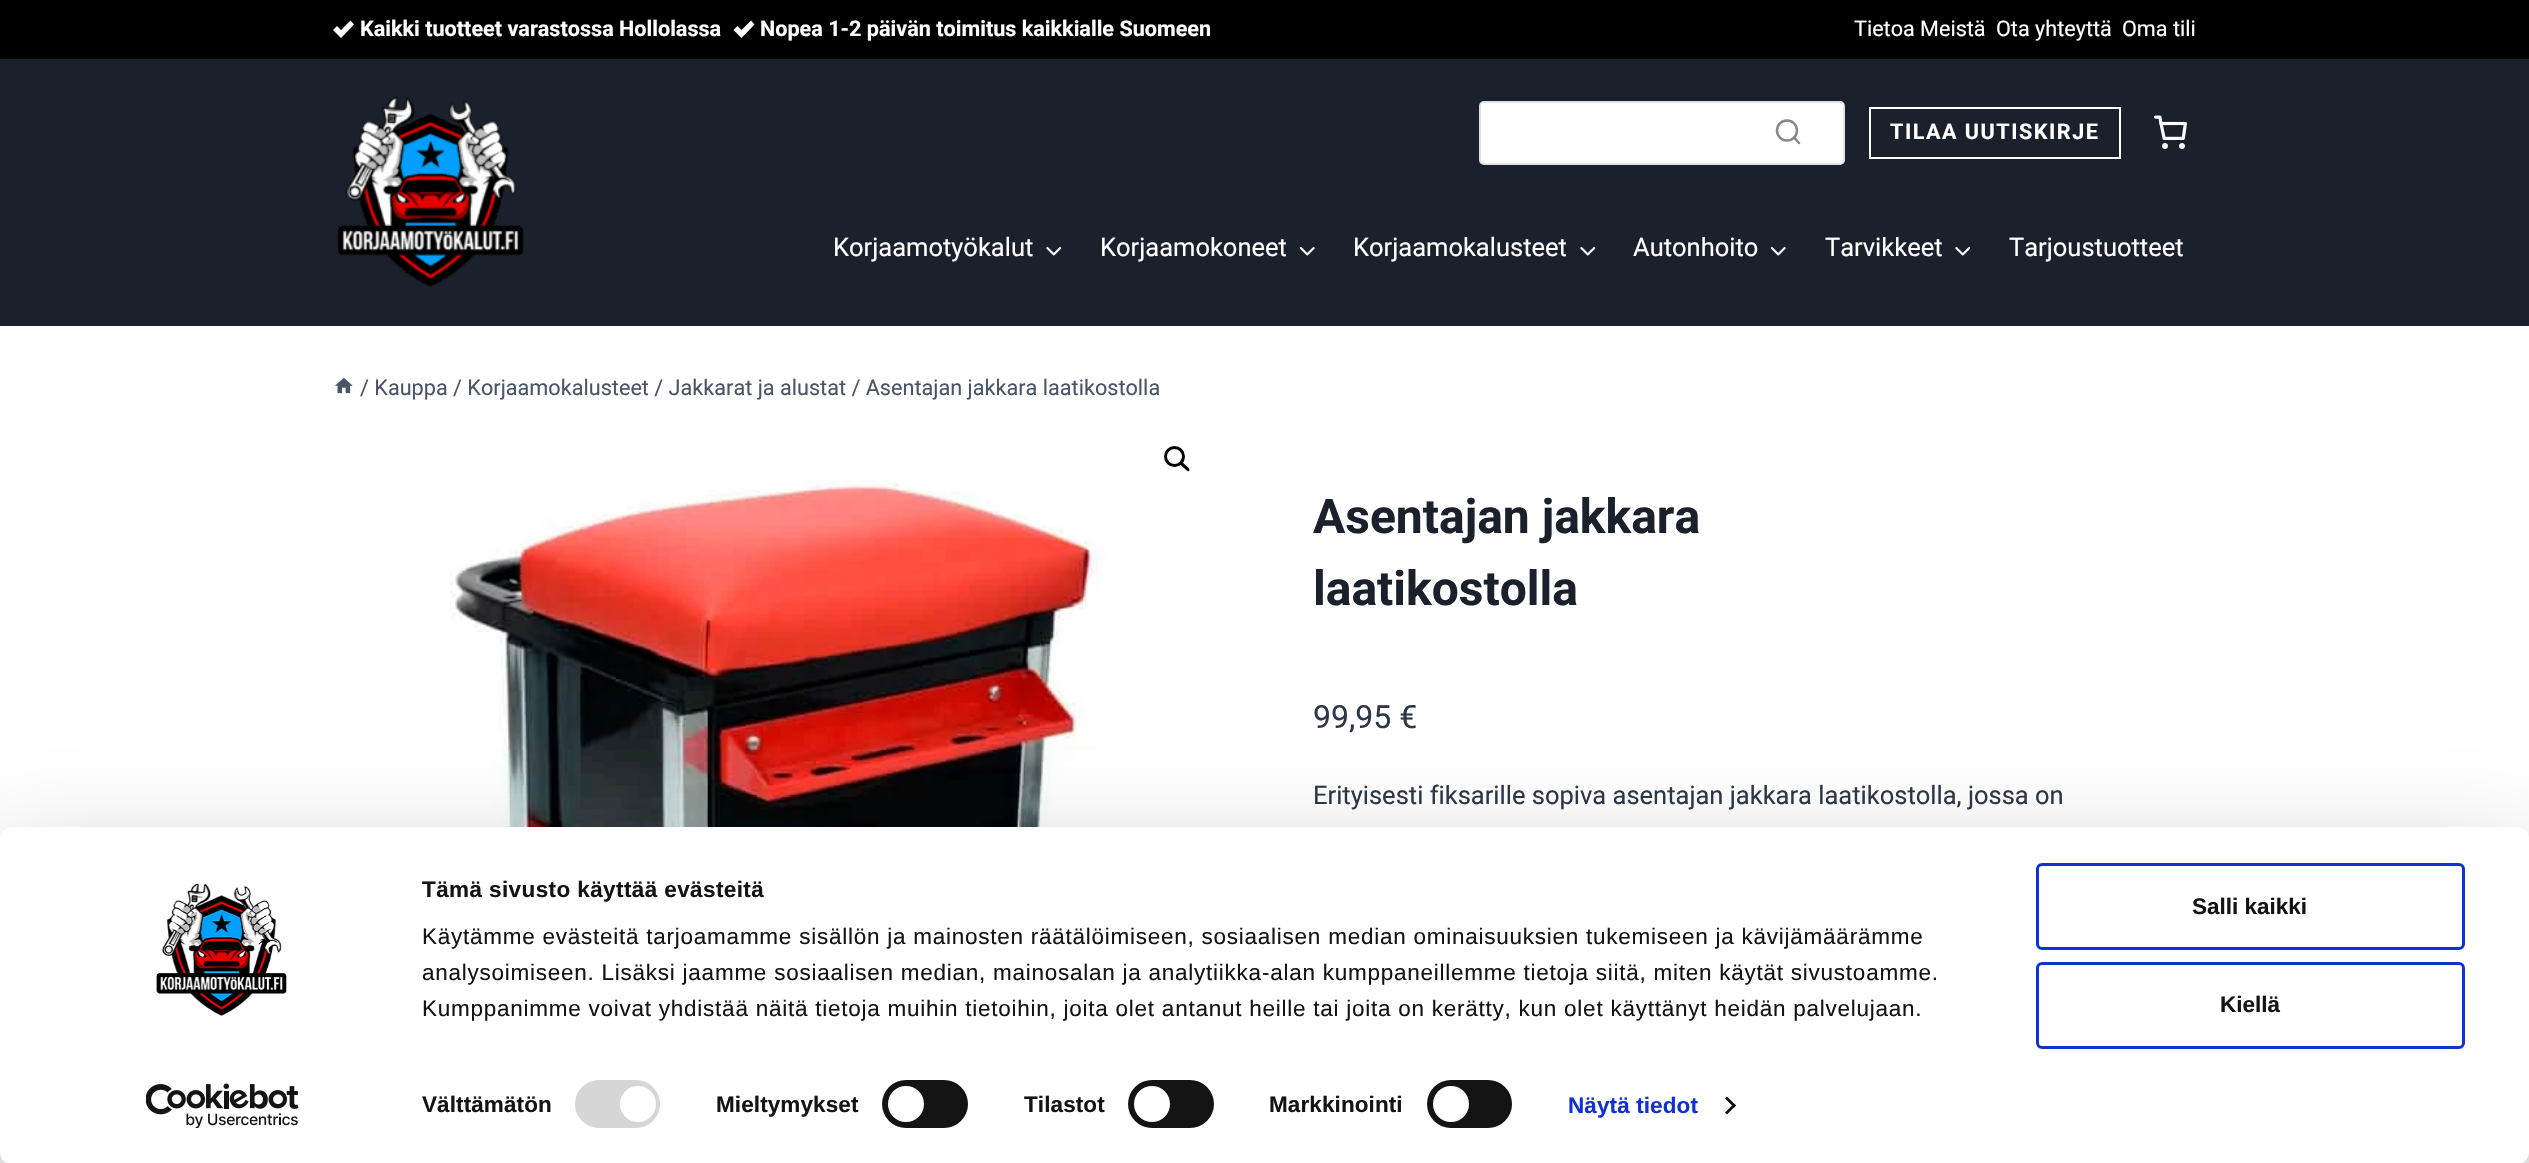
#include "include/core/SkBlurTypes.h"
#include "include/core/SkCanvas.h"
#include "include/core/SkData.h"
#include "include/core/SkFont.h"
#include "include/core/SkFontMgr.h"
#include "include/core/SkImage.h"
#include "include/core/SkMaskFilter.h"
#include "include/core/SkPaint.h"
#include "include/core/SkPathBuilder.h"
#include "include/core/SkTextBlob.h"
#include "include/effects/SkDashPathEffect.h"
#include "include/effects/SkGradientShader.h"
#include "include/utils/SkParsePath.h"

extern sk_sp<SkFontMgr> fontMgr;

void draw(SkCanvas* canvas) {
    SkPaint p;
    p.setAntiAlias(true);
    auto font = [&](const char* family, int weight, float size, bool italic = false) {
        SkFontStyle style(weight, SkFontStyle::kNormal_Width,
            italic ? SkFontStyle::kItalic_Slant : SkFontStyle::kUpright_Slant);
        SkFont result(fontMgr->matchFamilyStyle(family, style), size);
        result.setSubpixel(true);
        return result;
    };
    auto drawTracked = [&](const char* s, float x, float y, const SkFont& font, const SkPaint& ink, float letter, float word) {
        std::vector<SkGlyphID> glyphs(font.countText(s, strlen(s), SkTextEncoding::kUTF8));
        std::vector<float> xs(glyphs.size());
        font.textToGlyphs(s, strlen(s), SkTextEncoding::kUTF8, glyphs);
        font.getXPos(glyphs, xs, x);
        float extra = 0;
        for (size_t i = 0; i < glyphs.size(); i++) {
            xs[i] += extra;
            extra += letter + word * (glyphs[i] == font.unicharToGlyph(' '));
        }
        canvas->drawTextBlob(SkTextBlob::MakeFromPosHGlyphs(glyphs, xs, y, font), 0, 0, ink);
    };
    auto drawPhoto = [&](const char* path, float l, float t, float r, float b) {
        auto image = SkImages::DeferredFromEncodedData(SkData::MakeFromFileName(path));
        canvas->drawImageRect(image, SkRect::MakeLTRB(l, t, r, b), SkSamplingOptions());
    };
    canvas->clear(0xFFFFFFFF);
    p.setColor(0xFF1A202C);
    canvas->drawRect(SkRect::MakeLTRB(0, 59, 2529, 326), p);
    p.setColor(0xFF000000);
    canvas->drawRect(SkRect::MakeLTRB(0, 0, 2529, 59), p);
    p.setColor(0xFFFFFFFF);
    canvas->drawPath(SkPathBuilder().moveTo(350.5f, 20.5f).lineTo(341, 30).lineTo(337, 26).lineTo(333, 30).lineTo(341, 38).lineTo(354, 24.5f).close().detach(), p);
    auto font1 = font("Roboto", 700, 21.6f);
    canvas->drawString("Kaikki tuotteet varastossa Hollolassa", 360, 36, font1, p);
    canvas->drawPath(SkPathBuilder().moveTo(751, 20.5f).lineTo(741.5f, 30).lineTo(737.5f, 26).lineTo(733.5f, 30).lineTo(741.5f, 38).lineTo(754.5f, 24.5f).close().detach(), p);
    canvas->drawString("Nopea 1-2 päivän toimitus kaikkialle Suomeen", 760, 36, font1, p);
    auto font2 = font("Roboto", 400, 21.6f);
    {
        const struct { const char* s; float x, y; } items[] = {
            {"Tietoa Meistä", 1854, 36},
            {"Ota yhteyttä", 1996, 36},
            {"Oma tili", 2122, 36},
        };
        for (auto [s, x, y] : items) {
            canvas->drawString(s, x, y, font2, p);
        }
    }
    drawPhoto("media/1.png", 337, 96, 524, 287);
    canvas->drawRoundRect(SkRect::MakeLTRB(1480, 102, 1844, 164), 4, 4, p);
    p.setStyle(SkPaint::kStroke_Style);
    p.setStrokeWidth(2);
    p.setColor(0xFFDEE2E6);
    canvas->drawRoundRect(SkRect::MakeLTRB(1480, 102, 1844, 164), 4, 4, p);
    p.setStrokeWidth(2.5f);
    p.setColor(0xFF888888);
    canvas->drawCircle(1787, 130.5f, 10, p);
    p.setStrokeCap(SkPaint::kRound_Cap);
    p.setStrokeJoin(SkPaint::kRound_Join);
    canvas->drawPath(SkPathBuilder().moveTo(1799, 143).lineTo(1794, 137.5f).detach(), p);
    p.setStrokeWidth(2);
    p.setStrokeCap(SkPaint::kButt_Cap);
    p.setStrokeJoin(SkPaint::kMiter_Join);
    p.setColor(0xFFFFFFFF);
    canvas->drawRect(SkRect::MakeLTRB(1870, 108, 2120, 158), p);
    p.setStyle(SkPaint::kFill_Style);
    drawTracked("TILAA UUTISKIRJE", 1890, 139, font1, p, 1.5f, 0);
    drawPhoto("media/2.png", 2154, 115, 2187, 149);
    auto font3 = font("Roboto", 400, 25.5f);
    canvas->drawString("Korjaamotyökalut", 833, 256, font3, p);
    drawPhoto("media/3.png", 1046, 247, 1062, 256);
    canvas->drawString("Korjaamokoneet", 1100, 256, font3, p);
    drawPhoto("media/4.png", 1299, 247, 1315, 256);
    canvas->drawString("Korjaamokalusteet", 1353, 256, font3, p);
    drawPhoto("media/3.png", 1580, 247, 1596, 256);
    canvas->drawString("Autonhoito", 1633, 256, font3, p);
    drawPhoto("media/4.png", 1770, 247, 1786, 256);
    canvas->drawString("Tarvikkeet", 1825, 256, font3, p);
    drawPhoto("media/3.png", 1955, 247, 1971, 256);
    canvas->drawString("Tarjoustuotteet", 2009, 256, font3, p);
    drawPhoto("media/5.png", 335, 377, 353, 394);
    auto font4 = font("Roboto", 400, 21.65f);
    p.setColor(0xFF4A5568);
    canvas->drawString("/ Kauppa / Korjaamokalusteet / Jakkarat ja alustat / Asentajan jakkara laatikostolla", 360, 395, font4, p);
    p.setStyle(SkPaint::kStroke_Style);
    p.setStrokeWidth(3);
    p.setColor(0xFF000000);
    canvas->drawCircle(1174.5f, 456.5f, 9, p);
    p.setStyle(SkPaint::kFill_Style);
    canvas->drawPath(SkPathBuilder().moveTo(1181, 462.5f).cubicTo(1182.5f, 461, 1185, 465, 1186, 465.5f).cubicTo(1187, 466.5f, 1191, 469.5f, 1189, 471).cubicTo(1187.5f, 472.5f, 1185, 468.5f, 1184, 468).cubicTo(1183, 467, 1179, 464, 1181, 462.5f).close().detach(), p);
    drawPhoto("media/6.png", 439, 479, 1111, 827);
    auto font5 = font("Roboto", 700, 48);
    p.setColor(0xFF1A202C);
    canvas->drawString("Asentajan jakkara", 1313, 533, font5, p);
    canvas->drawString("laatikostolla", 1313, 605, font5, p);
    auto font6 = font("Roboto", 400, 32);
    p.setColor(0xFF2D3748);
    canvas->drawString("99,95 €", 1313, 728, font6, p);
    canvas->drawString("Erityisesti fiksarille sopiva asentajan jakkara laatikostolla, jossa on", 1313, 804, font3, p);
    p.setColor(0x4D000000);
    p.setMaskFilter(SkMaskFilter::MakeBlur(kNormal_SkBlurStyle, 52.5f));
    canvas->drawRoundRect(SkRect::MakeLTRB(0, 872, 2529, 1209), 12, 12, p);
    p.setMaskFilter(nullptr);
    p.setColor(0xFFFFFFFF);
    canvas->drawRoundRect(SkRect::MakeLTRB(0, 827, 2529, 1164), 12, 12, p);
    drawPhoto("media/7.png", 156, 883, 287, 1016);
    drawPhoto("media/8.png", 146, 1083, 299, 1128);
    auto font7 = font("Liberation Sans", 700, 22.5f);
    p.setColor(0xFF141414);
    drawTracked("Tämä sivusto käyttää evästeitä", 422, 897, font7, p, 0.4f, 0);
    auto font8 = font("Liberation Sans", 400, 22.5f);
    {
        const struct { const char* s; float x, y; } items[] = {
            {"Käytämme evästeitä tarjoamamme sisällön ja mainosten räätälöimiseen, sosiaalisen median ominaisuuksien tukemiseen ja kävijämäärämme", 422, 944},
            {"analysoimiseen. Lisäksi jaamme sosiaalisen median, mainosalan ja analytiikka-alan kumppaneillemme tietoja siitä, miten käytät sivustoamme.", 422, 980},
            {"Kumppanimme voivat yhdistää näitä tietoja muihin tietoihin, joita olet antanut heille tai joita on kerätty, kun olet käyttänyt heidän palvelujaan.", 422, 1016},
        };
        for (auto [s, x, y] : items) {
            drawTracked(s, x, y, font8, p, 0.75f, 0);
        }
    }
    drawTracked("Välttämätön", 422, 1112, font7, p, 0.1f, 0);
    p.setColor(0xFFD6D6D6);
    canvas->drawRoundRect(SkRect::MakeLTRB(575, 1080, 660, 1128), 24, 24, p);
    p.setColor(0xFFFFFFFF);
    canvas->drawCircle(638, 1104, 18, p);
    p.setColor(0xFF141414);
    drawTracked("Mieltymykset", 716, 1112, font7, p, 0.1f, 0);
    canvas->drawRoundRect(SkRect::MakeLTRB(882, 1080, 968, 1128), 24, 24, p);
    p.setColor(0xFFFFFFFF);
    canvas->drawCircle(906, 1104, 18, p);
    p.setColor(0xFF141414);
    drawTracked("Tilastot", 1024, 1112, font7, p, 0.1f, 0);
    canvas->drawRoundRect(SkRect::MakeLTRB(1128, 1080, 1214, 1128), 24, 24, p);
    p.setColor(0xFFFFFFFF);
    canvas->drawCircle(1152, 1104, 18, p);
    p.setColor(0xFF141414);
    drawTracked("Markkinointi", 1269, 1112, font7, p, 0.1f, 0);
    canvas->drawRoundRect(SkRect::MakeLTRB(1427, 1080, 1512, 1128), 24, 24, p);
    p.setColor(0xFFFFFFFF);
    canvas->drawCircle(1451, 1104, 18, p);
    p.setColor(0xFF1032CF);
    drawTracked("Näytä tiedot", 1568, 1113, font7, p, 0.1f, 0);
    p.setColor(0xFF141414);
    canvas->drawPath(SkPathBuilder().moveTo(1727, 1096.5f).lineTo(1736, 1105.5f).lineTo(1734, 1107.5f).lineTo(1725, 1098.5f).close().detach(), p);
    canvas->drawPath(SkPathBuilder().moveTo(1734, 1103.5f).lineTo(1736, 1105.5f).lineTo(1727, 1114.5f).lineTo(1725, 1112.5f).close().detach(), p);
    p.setStyle(SkPaint::kStroke_Style);
    p.setColor(0xFF1032CF);
    canvas->drawRoundRect(SkRect::MakeLTRB(2037.5f, 864.5f, 2463.5f, 948.5f), 4.5f, 4.5f, p);
    p.setStyle(SkPaint::kFill_Style);
    p.setColor(0xFF141414);
    canvas->drawString("Salli kaikki", 2192, 914, font7, p);
    p.setStyle(SkPaint::kStroke_Style);
    p.setColor(0xFF1032CF);
    canvas->drawRoundRect(SkRect::MakeLTRB(2037.5f, 963.5f, 2463.5f, 1047.5f), 4.5f, 4.5f, p);
    p.setStyle(SkPaint::kFill_Style);
    p.setColor(0xFF141414);
    canvas->drawString("Kiellä", 2220, 1012, font7, p);
}
